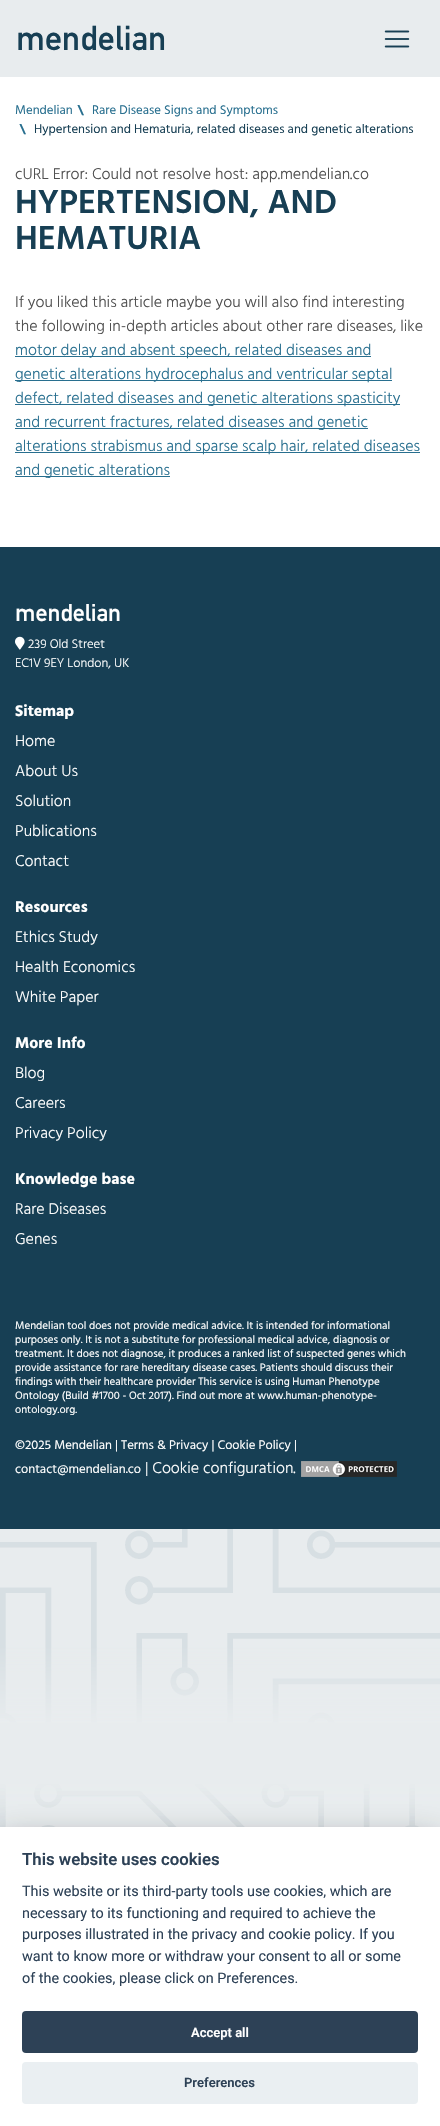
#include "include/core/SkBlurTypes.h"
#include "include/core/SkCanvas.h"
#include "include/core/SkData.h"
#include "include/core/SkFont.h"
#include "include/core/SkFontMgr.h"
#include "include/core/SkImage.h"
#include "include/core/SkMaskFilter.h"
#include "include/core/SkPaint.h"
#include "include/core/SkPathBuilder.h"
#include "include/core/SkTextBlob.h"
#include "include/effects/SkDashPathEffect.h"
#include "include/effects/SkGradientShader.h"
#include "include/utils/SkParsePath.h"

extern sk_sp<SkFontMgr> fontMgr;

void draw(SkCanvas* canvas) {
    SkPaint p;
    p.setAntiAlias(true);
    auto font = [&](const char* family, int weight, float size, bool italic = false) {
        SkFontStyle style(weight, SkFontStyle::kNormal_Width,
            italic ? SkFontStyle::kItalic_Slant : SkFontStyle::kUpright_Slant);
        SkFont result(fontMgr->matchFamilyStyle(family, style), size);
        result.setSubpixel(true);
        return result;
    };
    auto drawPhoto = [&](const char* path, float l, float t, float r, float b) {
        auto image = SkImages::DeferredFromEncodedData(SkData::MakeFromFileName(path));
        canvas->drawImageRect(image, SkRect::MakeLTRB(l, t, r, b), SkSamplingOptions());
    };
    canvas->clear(0xFFE8ECEE);
    drawPhoto("media/1.png", 0, 1529, 440, 1827);
    auto font1 = font("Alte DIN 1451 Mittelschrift", 400, 34);
    p.setColor(0xFF173F54);
    canvas->drawString("mendelian", 16, 50, font1, p);
    drawPhoto("media/2.png", 384, 30, 410, 48);
    p.setColor(0xFFFFFFFF);
    canvas->drawRect(SkRect::MakeLTRB(0, 77, 440, 547), p);
    auto font2 = font("Hind", 400, 12.8f);
    p.setColor(0xFF286F8F);
    canvas->drawString("Mendelian", 15, 114, font2, p);
    auto font3 = font("Hind", 700, 12.8f);
    canvas->drawString("\\", 78, 114, font3, p);
    canvas->drawString("Rare Disease Signs and Symptoms", 92, 114, font2, p);
    canvas->drawString("\\", 20, 133, font3, p);
    p.setColor(0xFF173F54);
    canvas->drawString("Hypertension and Hematuria, related diseases and genetic alterations", 34, 133, font2, p);
    auto font4 = font("Hind", 300, 16);
    p.setColor(0xFF4F4F4F);
    canvas->drawString("cURL Error: Could not resolve host: app.mendelian.co", 15, 179, font4, p);
    auto font5 = font("Hind", 600, 34);
    p.setColor(0xFF173F54);
    canvas->drawString("HYPERTENSION, AND", 15, 213, font5, p);
    canvas->drawString("HEMATURIA", 15, 249, font5, p);
    p.setColor(0xFF4F4F4F);
    canvas->drawString("If you liked this article maybe you will also find interesting", 15, 307, font4, p);
    canvas->drawString("the following in-depth articles about other rare diseases, like", 15, 331, font4, p);
    p.setColor(0xFF286F8F);
    canvas->drawRect(SkRect::MakeLTRB(15, 356, 371, 357), p);
    canvas->drawString("motor delay and absent speech, related diseases and", 15, 355, font4, p);
    canvas->drawRect(SkRect::MakeLTRB(15, 380, 392, 381), p);
    canvas->drawString("genetic alterations hydrocephalus and ventricular septal", 15, 379, font4, p);
    canvas->drawRect(SkRect::MakeLTRB(15, 404, 400, 405), p);
    canvas->drawString("defect, related diseases and genetic alterations spasticity", 15, 403, font4, p);
    canvas->drawRect(SkRect::MakeLTRB(15, 428, 368, 429), p);
    canvas->drawString("and recurrent fractures, related diseases and genetic", 15, 427, font4, p);
    canvas->drawRect(SkRect::MakeLTRB(15, 452, 420, 453), p);
    canvas->drawString("alterations strabismus and sparse scalp hair, related diseases", 15, 451, font4, p);
    canvas->drawRect(SkRect::MakeLTRB(15, 476, 170, 477), p);
    canvas->drawString("and genetic alterations", 15, 475, font4, p);
    p.setColor(0xFF173F54);
    canvas->drawRect(SkRect::MakeLTRB(0, 547, 440, 1529), p);
    auto font6 = font("Alte DIN 1451 Mittelschrift", 400, 24);
    p.setColor(0xFFFFFFFF);
    canvas->drawString("mendelian", 15, 621, font6, p);
    drawPhoto("media/3.png", 15, 636, 25, 650);
    auto font7 = font("Hind", 300, 12.8f);
    canvas->drawString("239 Old Street", 28, 648, font7, p);
    canvas->drawString("EC1V 9EY London, UK", 15, 667, font7, p);
    auto font8 = font("Hind", 700, 16);
    canvas->drawString("Sitemap", 15, 716, font8, p);
    {
        const struct { const char* s; float x, y; } items[] = {
            {"Home", 15, 746},
            {"About Us", 15, 776},
            {"Solution", 15, 806},
            {"Publications", 15, 836},
            {"Contact", 15, 866},
        };
        for (auto [s, x, y] : items) {
            canvas->drawString(s, x, y, font4, p);
        }
    }
    canvas->drawString("Resources", 15, 912, font8, p);
    {
        const struct { const char* s; float x, y; } items[] = {
            {"Ethics Study", 15, 942},
            {"Health Economics", 15, 972},
            {"White Paper", 15, 1002},
        };
        for (auto [s, x, y] : items) {
            canvas->drawString(s, x, y, font4, p);
        }
    }
    canvas->drawString("More Info", 15, 1048, font8, p);
    {
        const struct { const char* s; float x, y; } items[] = {
            {"Blog", 15, 1078},
            {"Careers", 15, 1108},
            {"Privacy Policy", 15, 1138},
        };
        for (auto [s, x, y] : items) {
            canvas->drawString(s, x, y, font4, p);
        }
    }
    canvas->drawString("Knowledge base", 15, 1184, font8, p);
    canvas->drawString("Rare Diseases", 15, 1214, font4, p);
    canvas->drawString("Genes", 15, 1244, font4, p);
    auto font9 = font("Hind", 400, 11);
    {
        const struct { const char* s; float x, y; } items[] = {
            {"Mendelian tool does not provide medical advice. It is intended for informational", 15, 1329},
            {"purposes only. It is not a substitute for professional medical advice, diagnosis or", 15, 1343},
            {"treatment. It does not diagnose, it produces a ranked list of suspected genes which", 15, 1357},
            {"provide assistance for rare hereditary disease cases. Patients should discuss their", 15, 1371},
            {"findings with their healthcare provider This service is using Human Phenotype", 15, 1385},
            {"Ontology (Build #1700 - Oct 2017). Find out more at www.human-phenotype-", 15, 1399},
            {"ontology.org.", 15, 1413},
        };
        for (auto [s, x, y] : items) {
            canvas->drawString(s, x, y, font9, p);
        }
    }
    canvas->drawString("©2025 Mendelian | Terms & Privacy | Cookie Policy |", 15, 1449, font2, p);
    canvas->drawString("contact@mendelian.co", 15, 1473, font2, p);
    canvas->drawString("| Cookie configuration.", 145, 1473, font4, p);
    drawPhoto("media/4.png", 301, 1461, 397, 1477);
    p.setColor(0x47020203);
    p.setMaskFilter(SkMaskFilter::MakeBlur(kNormal_SkBlurStyle, 15));
    canvas->drawRect(SkRect::MakeLTRB(0, 1837, 440, 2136), p);
    p.setMaskFilter(nullptr);
    p.setColor(0xFFFFFFFF);
    canvas->drawRect(SkRect::MakeLTRB(0, 1827, 440, 2126), p);
    auto font10 = font("Roboto", 600, 16.75f);
    p.setColor(0xFF2D4156);
    canvas->drawString("This website uses cookies", 22, 1865, font10, p);
    auto font11 = font("Roboto", 400, 14.4f);
    {
        const struct { const char* s; float x, y; } items[] = {
            {"This website or its third-party tools use cookies, which are", 22, 1896},
            {"necessary to its functioning and required to achieve the", 22, 1918},
            {"purposes illustrated in the privacy and cookie policy. If you", 22, 1939},
            {"want to know more or withdraw your consent to all or some", 22, 1961},
            {"of the cookies, please click on Preferences.", 22, 1983},
        };
        for (auto [s, x, y] : items) {
            canvas->drawString(s, x, y, font11, p);
        }
    }
    canvas->drawRoundRect(SkRect::MakeLTRB(22, 2011, 418, 2053), 4, 4, p);
    auto font12 = font("Roboto", 600, 13);
    p.setColor(0xFFFFFFFF);
    canvas->drawString("Accept all", 191, 2037, font12, p);
    p.setColor(0xFFEAEFF2);
    canvas->drawRoundRect(SkRect::MakeLTRB(22, 2062, 418, 2104), 4, 4, p);
    p.setColor(0xFF2D4156);
    canvas->drawString("Preferences", 184, 2087, font12, p);
}
